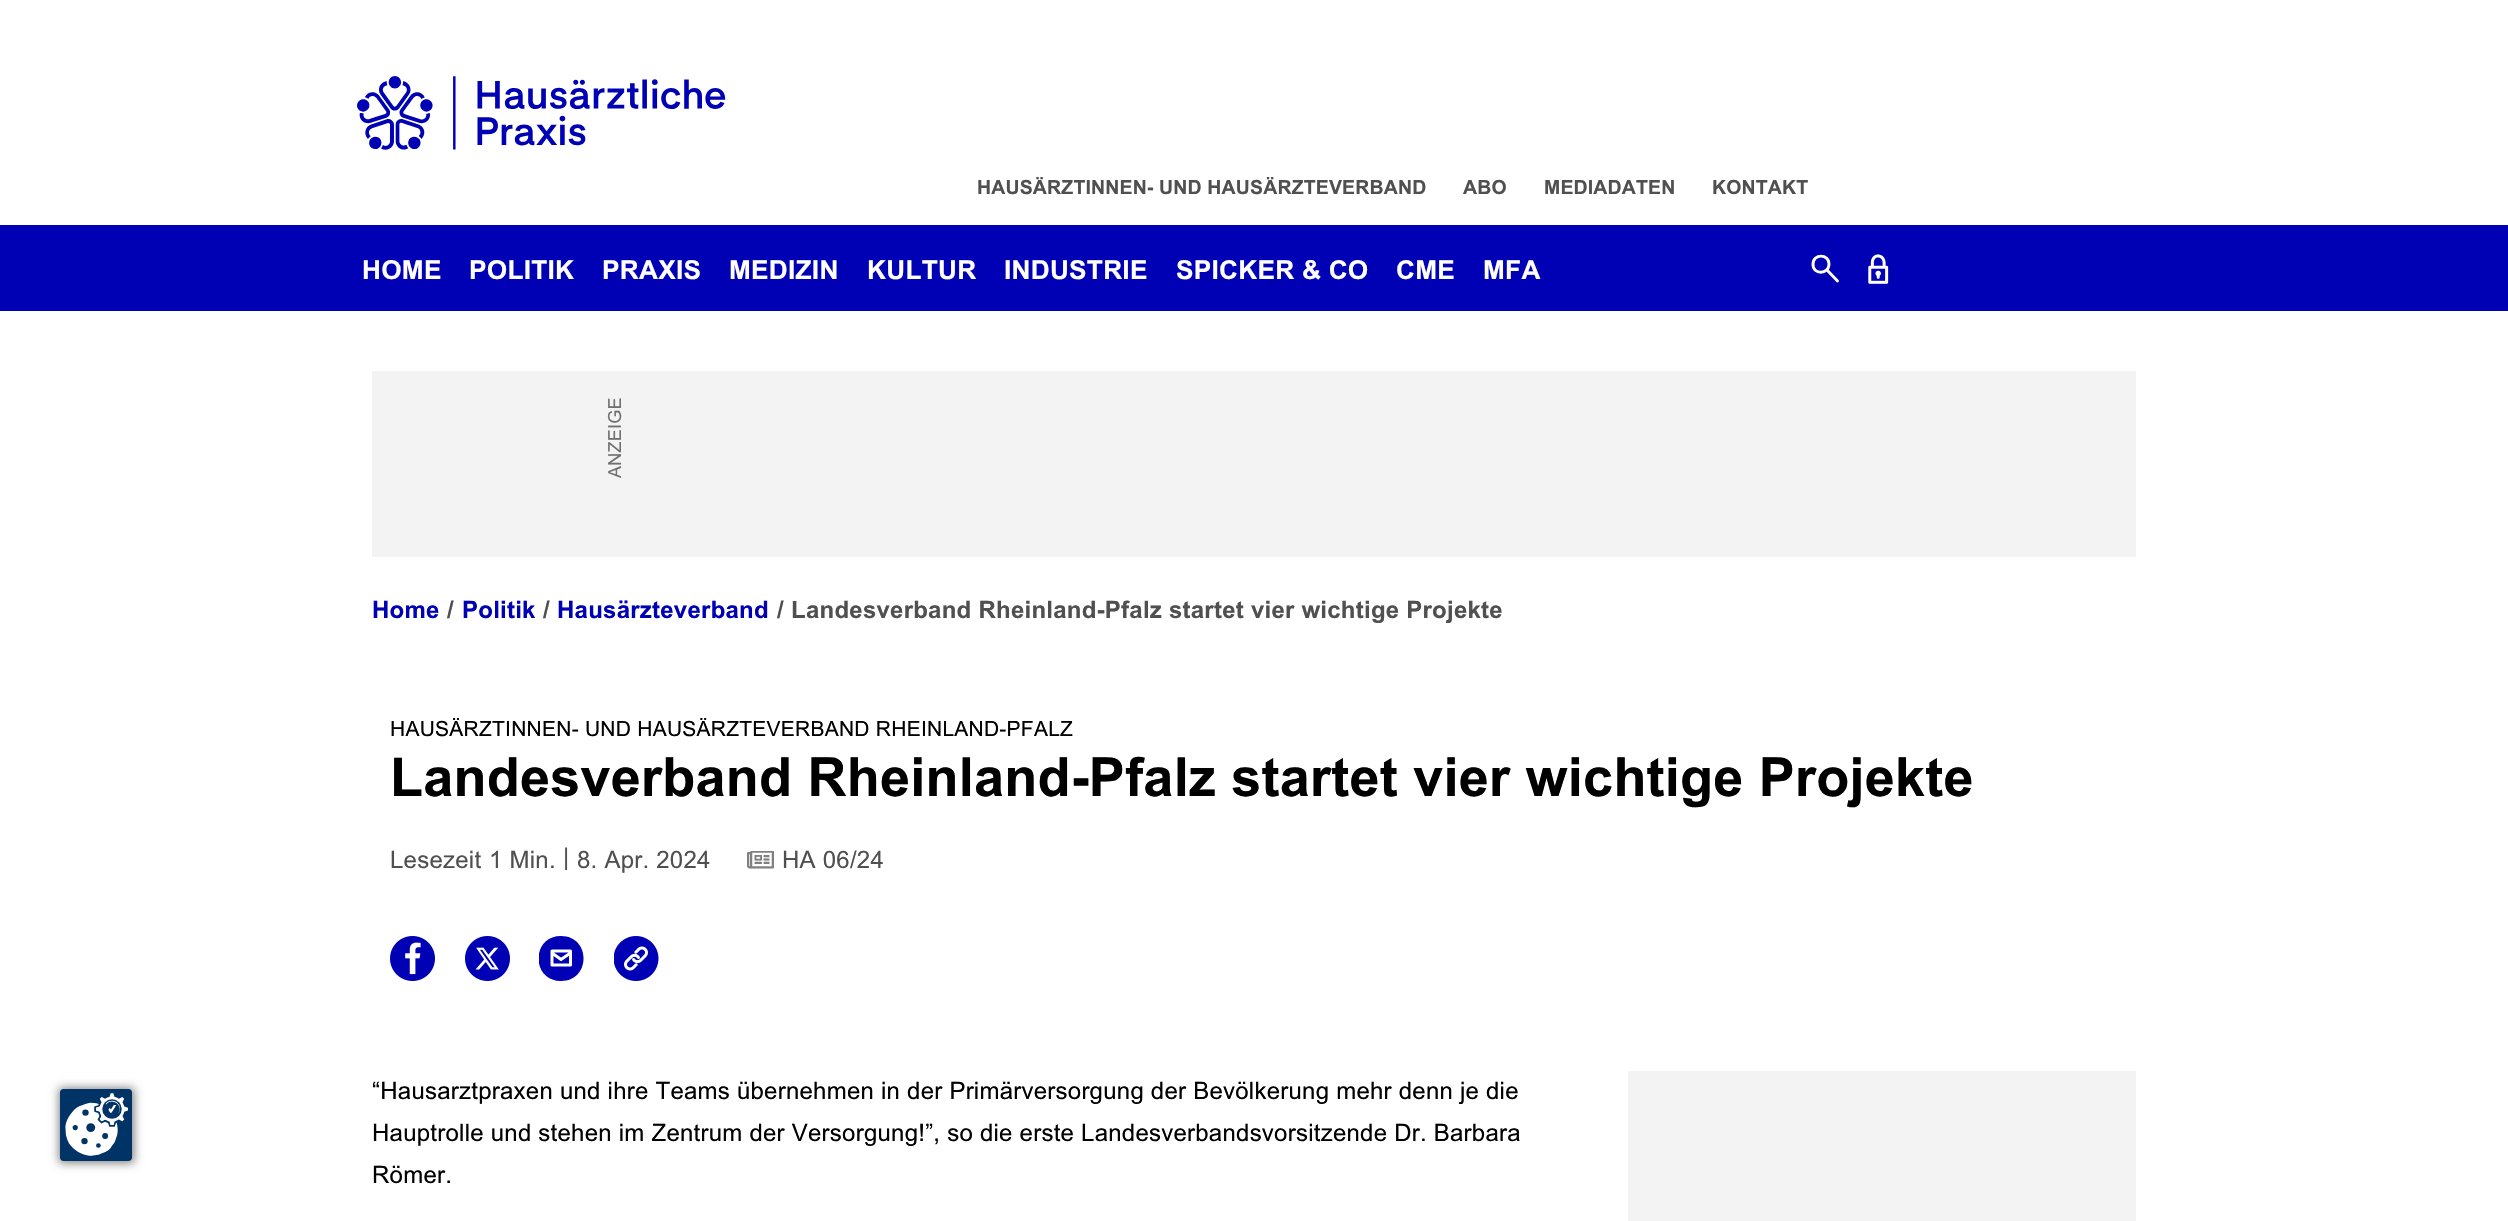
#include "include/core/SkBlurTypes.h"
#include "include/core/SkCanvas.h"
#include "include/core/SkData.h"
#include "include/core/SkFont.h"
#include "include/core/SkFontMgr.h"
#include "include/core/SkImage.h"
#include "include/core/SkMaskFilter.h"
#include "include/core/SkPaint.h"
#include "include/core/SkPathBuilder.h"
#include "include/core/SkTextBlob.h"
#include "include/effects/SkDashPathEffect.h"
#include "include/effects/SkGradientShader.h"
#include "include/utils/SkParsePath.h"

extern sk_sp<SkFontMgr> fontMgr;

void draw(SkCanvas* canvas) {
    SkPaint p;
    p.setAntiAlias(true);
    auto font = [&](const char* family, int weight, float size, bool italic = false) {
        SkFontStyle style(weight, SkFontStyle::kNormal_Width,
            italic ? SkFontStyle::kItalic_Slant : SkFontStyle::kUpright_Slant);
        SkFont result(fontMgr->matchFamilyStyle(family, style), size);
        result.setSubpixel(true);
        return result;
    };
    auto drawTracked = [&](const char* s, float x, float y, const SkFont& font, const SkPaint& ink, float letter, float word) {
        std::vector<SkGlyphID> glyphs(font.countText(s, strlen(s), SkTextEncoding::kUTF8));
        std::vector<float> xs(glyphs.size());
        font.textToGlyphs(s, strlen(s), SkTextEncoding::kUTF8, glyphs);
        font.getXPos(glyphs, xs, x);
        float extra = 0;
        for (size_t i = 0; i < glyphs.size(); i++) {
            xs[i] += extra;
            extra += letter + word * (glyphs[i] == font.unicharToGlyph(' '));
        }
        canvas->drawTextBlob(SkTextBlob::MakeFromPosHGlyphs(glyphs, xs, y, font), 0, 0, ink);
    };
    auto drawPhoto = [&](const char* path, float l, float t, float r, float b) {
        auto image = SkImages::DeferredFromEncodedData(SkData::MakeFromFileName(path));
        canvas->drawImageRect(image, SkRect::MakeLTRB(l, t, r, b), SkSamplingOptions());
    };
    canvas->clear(0xFFFFFFFF);
    drawPhoto("media/1.png", 357, 76, 726, 150);
    auto font1 = font("Arial", 700, 19.5f);
    p.setColor(0xFF505050);
    {
        const struct { const char* s; float x, y; } items[] = {
            {"HAUSÄRZTINNEN- UND HAUSÄRZTEVERBAND", 977, 194},
            {"ABO", 1463, 194},
            {"MEDIADATEN", 1544, 194},
            {"KONTAKT", 1712, 194},
        };
        for (auto [s, x, y] : items) {
            drawTracked(s, x, y, font1, p, 0.15f, 0);
        }
    }
    p.setColor(0xFF0000B4);
    canvas->drawRect(SkRect::MakeLTRB(0, 225, 2508, 311), p);
    auto font2 = font("Arial", 700, 26.25f);
    p.setColor(0xFFFFFFFF);
    {
        const struct { const char* s; float x, y; } items[] = {
            {"HOME", 362, 279},
            {"POLITIK", 469, 279},
            {"PRAXIS", 602, 279},
            {"MEDIZIN", 729, 279},
            {"KULTUR", 867, 279},
            {"INDUSTRIE", 1004, 279},
            {"SPICKER & CO", 1176, 279},
            {"CME", 1396, 279},
            {"MFA", 1483, 279},
        };
        for (auto [s, x, y] : items) {
            drawTracked(s, x, y, font2, p, 0.24f, 0);
        }
    }
    p.setStyle(SkPaint::kStroke_Style);
    p.setStrokeWidth(2.9f);
    p.setStrokeCap(SkPaint::kRound_Cap);
    canvas->drawPath(SkPathBuilder().moveTo(1829, 264).cubicTo(1829, 275, 1812.5f, 275, 1813, 264).cubicTo(1813, 253.5f, 1829, 253.5f, 1829, 264).close().moveTo(1827, 270).lineTo(1837.5f, 281).detach(), p);
    drawPhoto("media/2.png", 1868, 254, 1889, 284);
    p.setStyle(SkPaint::kFill_Style);
    p.setColor(0x80000000);
    p.setMaskFilter(SkMaskFilter::MakeBlur(kNormal_SkBlurStyle, 4.5f));
    canvas->drawRect(SkRect::MakeLTRB(59, 1088, 134, 1163), p);
    p.setMaskFilter(nullptr);
    drawPhoto("media/3.png", 60, 1089, 132, 1161);
    p.setColor(0xFFF3F3F3);
    canvas->drawRect(SkRect::MakeLTRB(372, 371, 2136, 557), p);
    auto font3 = font("Arial", 400, 18);
    p.setColor(0xFF707070);
    canvas->save();
    canvas->rotate(-90, 621, 478);
    drawTracked("ANZEIGE", 621, 478, font3, p, 0.24f, 0);
    canvas->restore();
    auto font4 = font("Arial", 700, 24);
    p.setColor(0xFF0000B4);
    drawTracked("Home", 372, 618, font4, p, 0.24f, 0);
    p.setColor(0xFF505050);
    drawTracked("/", 447, 618, font4, p, 0.24f, 0);
    p.setColor(0xFF0000B4);
    drawTracked("Politik", 462, 618, font4, p, 0.24f, 0);
    p.setColor(0xFF505050);
    drawTracked("/", 543, 618, font4, p, 0.24f, 0);
    p.setColor(0xFF0000B4);
    drawTracked("Hausärzteverband", 557, 618, font4, p, 0.24f, 0);
    p.setColor(0xFF505050);
    drawTracked("/", 777, 618, font4, p, 0.24f, 0);
    drawTracked("Landesverband Rheinland-Pfalz startet vier wichtige Projekte", 791, 618, font4, p, 0.24f, 0);
    auto font5 = font("Arial", 400, 21);
    p.setColor(0xFF000000);
    drawTracked("HAUSÄRZTINNEN- UND HAUSÄRZTEVERBAND RHEINLAND-PFALZ", 390, 736, font5, p, 0.24f, 0);
    auto font6 = font("Arial", 700, 54);
    drawTracked("Landesverband Rheinland-Pfalz startet vier wichtige Projekte", 390, 796, font6, p, 0.24f, 0);
    auto font7 = font("Arial", 400, 24);
    p.setColor(0xFF505050);
    {
        const struct { const char* s; float x, y; } items[] = {
            {"Lesezeit", 390, 868},
            {"1 Min.", 489, 868},
            {"|", 563, 865},
            {"8. Apr. 2024", 577, 868},
        };
        for (auto [s, x, y] : items) {
            drawTracked(s, x, y, font7, p, 0.24f, 0);
        }
    }
    drawPhoto("media/4.png", 747, 851, 774, 869);
    drawTracked("HA 06/24", 782, 868, font7, p, 0.24f, 0);
    drawPhoto("media/5.png", 390, 936, 435, 981);
    drawPhoto("media/6.png", 465, 936, 510, 981);
    canvas->save();
    canvas->clipRect(SkRect::MakeLTRB(539, 936, 584, 981));
    p.setColor(0xFF0000B4);
    canvas->drawPath(SkPathBuilder().moveTo(561, 981).cubicTo(591, 981, 591, 936, 561, 936).cubicTo(531, 936, 531, 981, 561, 981).close().detach(), p);
    canvas->restore();
    p.setStyle(SkPaint::kStroke_Style);
    p.setStrokeWidth(3);
    p.setStrokeJoin(SkPaint::kRound_Join);
    p.setColor(0xFFFFFFFF);
    canvas->drawPath(SkPathBuilder().moveTo(552, 953).lineTo(552, 965).lineTo(570.5f, 965).lineTo(570.5f, 953).lineTo(561, 959.5f).close().moveTo(552, 953).lineTo(552, 951).lineTo(570.5f, 951).lineTo(570.5f, 953).detach(), p);
    drawPhoto("media/7.png", 614, 936, 659, 981);
    p.setStyle(SkPaint::kFill_Style);
    p.setColor(0xFF000000);
    {
        const struct { const char* s; float x, y; } items[] = {
            {"“Hausarztpraxen und ihre Teams übernehmen in der Primärversorgung der Bevölkerung mehr denn je die", 372, 1099},
            {"Hauptrolle und stehen im Zentrum der Versorgung!”, so die erste Landesverbandsvorsitzende Dr. Barbara", 372, 1141},
            {"Römer.", 372, 1183},
        };
        for (auto [s, x, y] : items) {
            drawTracked(s, x, y, font7, p, 0.24f, 0);
        }
    }
    p.setColor(0xFFF3F3F3);
    canvas->drawRect(SkRect::MakeLTRB(1628, 1071, 2136, 1221), p);
}
